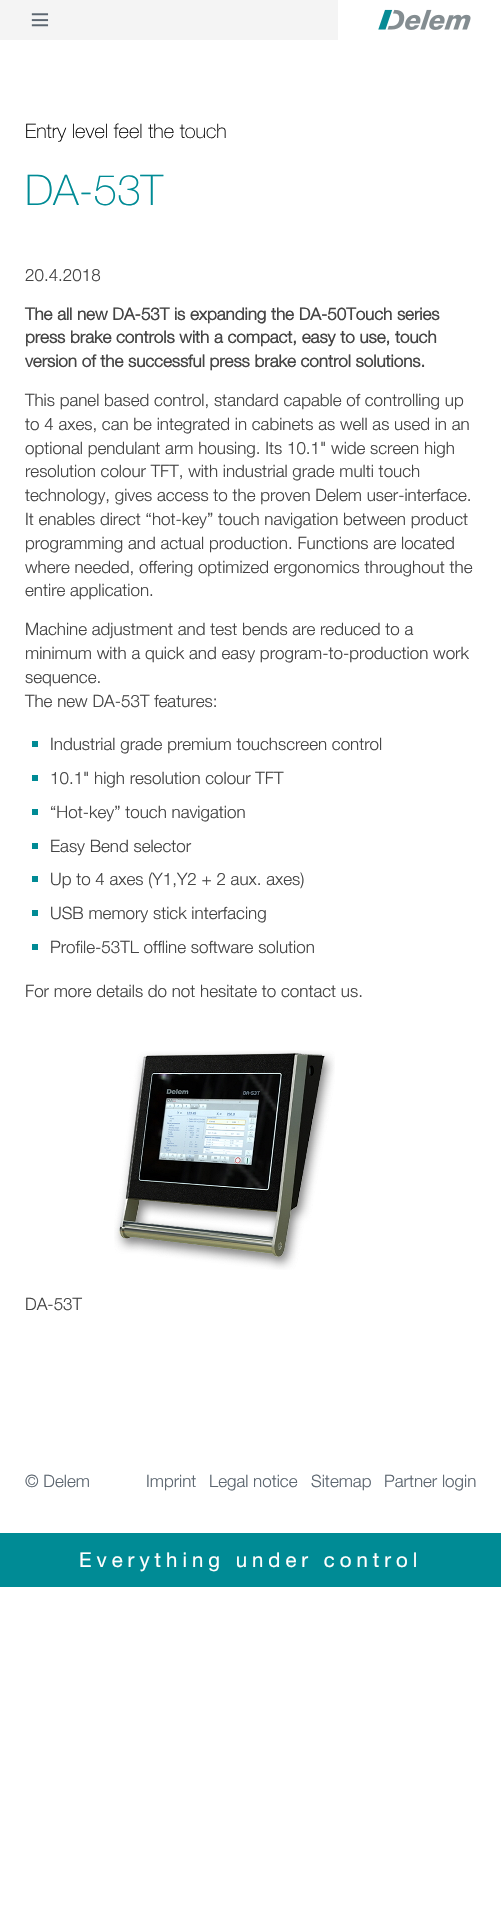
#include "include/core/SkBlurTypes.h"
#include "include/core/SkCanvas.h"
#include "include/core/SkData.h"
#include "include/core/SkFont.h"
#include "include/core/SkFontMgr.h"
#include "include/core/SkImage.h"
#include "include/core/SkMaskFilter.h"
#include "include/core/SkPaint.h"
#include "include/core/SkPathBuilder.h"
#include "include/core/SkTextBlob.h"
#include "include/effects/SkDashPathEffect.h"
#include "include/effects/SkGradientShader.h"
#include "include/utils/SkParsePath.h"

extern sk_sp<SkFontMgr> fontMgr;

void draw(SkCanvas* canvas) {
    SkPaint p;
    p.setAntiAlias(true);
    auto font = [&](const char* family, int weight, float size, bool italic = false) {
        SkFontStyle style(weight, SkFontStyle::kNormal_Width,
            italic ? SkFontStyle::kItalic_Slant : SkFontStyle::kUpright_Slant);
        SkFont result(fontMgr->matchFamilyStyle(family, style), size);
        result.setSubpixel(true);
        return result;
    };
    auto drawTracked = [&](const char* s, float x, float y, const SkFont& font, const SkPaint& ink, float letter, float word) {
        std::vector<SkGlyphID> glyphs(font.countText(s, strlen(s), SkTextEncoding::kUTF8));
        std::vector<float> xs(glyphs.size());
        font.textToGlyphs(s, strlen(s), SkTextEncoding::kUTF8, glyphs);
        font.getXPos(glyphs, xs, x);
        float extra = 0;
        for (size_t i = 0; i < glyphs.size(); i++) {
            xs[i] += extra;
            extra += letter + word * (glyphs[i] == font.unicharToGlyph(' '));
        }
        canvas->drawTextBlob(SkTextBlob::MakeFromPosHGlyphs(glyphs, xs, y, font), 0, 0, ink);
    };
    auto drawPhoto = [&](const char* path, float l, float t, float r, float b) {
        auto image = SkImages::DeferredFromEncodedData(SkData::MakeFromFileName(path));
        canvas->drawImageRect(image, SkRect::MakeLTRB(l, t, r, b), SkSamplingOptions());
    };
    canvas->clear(0xFFFFFFFF);
    p.setColor(0xFFF4F4F4);
    canvas->drawRect(SkRect::MakeLTRB(0, 0, 338, 40), p);
    drawPhoto("media/1.png", 31, 13, 49, 27);
    drawPhoto("media/2.png", 378, 9, 471, 30);
    auto font1 = font("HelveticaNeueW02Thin", 100, 20);
    p.setColor(0xFF000000);
    canvas->drawString("Entry level feel the touch", 25, 138, font1, p);
    auto font2 = font("HelveticaNeueW02Thin", 100, 42.5f);
    p.setColor(0xFF008B95);
    canvas->drawString("DA-53T", 25, 205, font2, p);
    auto font3 = font("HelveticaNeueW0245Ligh", 300, 17);
    p.setColor(0xFF444444);
    canvas->drawString("20.4.2018", 25, 281, font3, p);
    auto font4 = font("HelveticaNeueW0245Ligh", 700, 17);
    {
        const struct { const char* s; float x, y; } items[] = {
            {"The all new DA-53T is expanding the DA-50Touch series", 25, 320},
            {"press brake controls with a compact, easy to use, touch", 25, 343},
            {"version of the successful press brake control solutions.", 25, 367},
        };
        for (auto [s, x, y] : items) {
            canvas->drawString(s, x, y, font4, p);
        }
    }
    {
        const struct { const char* s; float x, y; } items[] = {
            {"This panel based control, standard capable of controlling up", 25, 406},
            {"to 4 axes, can be integrated in cabinets as well as used in an", 25, 430},
            {"optional pendulant arm housing. Its 10.1\" wide screen high", 25, 454},
            {"resolution colour TFT, with industrial grade multi touch", 25, 477},
            {"technology, gives access to the proven Delem user-interface.", 25, 501},
            {"It enables direct “hot-key” touch navigation between product", 25, 525},
            {"programming and actual production. Functions are located", 25, 549},
            {"where needed, offering optimized ergonomics throughout the", 25, 573},
            {"entire application.", 25, 596},
            {"Machine adjustment and test bends are reduced to a", 25, 635},
            {"minimum with a quick and easy program-to-production work", 25, 659},
            {"sequence.", 25, 683},
            {"The new DA-53T features:", 25, 707},
        };
        for (auto [s, x, y] : items) {
            canvas->drawString(s, x, y, font3, p);
        }
    }
    p.setColor(0xFF008B95);
    canvas->drawRect(SkRect::MakeLTRB(32, 741, 38, 747), p);
    p.setColor(0xFF444444);
    canvas->drawString("Industrial grade premium touchscreen control", 50, 750, font3, p);
    p.setColor(0xFF008B95);
    canvas->drawRect(SkRect::MakeLTRB(32, 775, 38, 781), p);
    p.setColor(0xFF444444);
    canvas->drawString("10.1\" high resolution colour TFT", 50, 784, font3, p);
    p.setColor(0xFF008B95);
    canvas->drawRect(SkRect::MakeLTRB(32, 809, 38, 815), p);
    p.setColor(0xFF444444);
    canvas->drawString("“Hot-key” touch navigation", 50, 818, font3, p);
    p.setColor(0xFF008B95);
    canvas->drawRect(SkRect::MakeLTRB(32, 843, 38, 849), p);
    p.setColor(0xFF444444);
    canvas->drawString("Easy Bend selector", 50, 852, font3, p);
    p.setColor(0xFF008B95);
    canvas->drawRect(SkRect::MakeLTRB(32, 876, 38, 882), p);
    p.setColor(0xFF444444);
    canvas->drawString("Up to 4 axes (Y1,Y2 + 2 aux. axes)", 50, 885, font3, p);
    p.setColor(0xFF008B95);
    canvas->drawRect(SkRect::MakeLTRB(32, 910, 38, 916), p);
    p.setColor(0xFF444444);
    canvas->drawString("USB memory stick interfacing", 50, 919, font3, p);
    p.setColor(0xFF008B95);
    canvas->drawRect(SkRect::MakeLTRB(32, 944, 38, 950), p);
    p.setColor(0xFF444444);
    canvas->drawString("Profile-53TL offline software solution", 50, 953, font3, p);
    canvas->drawString("For more details do not hesitate to contact us.", 25, 997, font3, p);
    drawPhoto("media/3.png", 114, 1050, 335, 1270);
    canvas->drawString("DA-53T", 25, 1310, font3, p);
    p.setColor(0xFF5C6670);
    {
        const struct { const char* s; float x, y; } items[] = {
            {"© Delem", 25, 1487},
            {"Imprint", 146, 1487},
            {"Legal notice", 209, 1487},
            {"Sitemap", 311, 1487},
            {"Partner login", 384, 1487},
        };
        for (auto [s, x, y] : items) {
            canvas->drawString(s, x, y, font3, p);
        }
    }
    p.setColor(0xFF008B95);
    canvas->drawRect(SkRect::MakeLTRB(0, 1533, 501, 1587), p);
    auto font5 = font("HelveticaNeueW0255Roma", 400, 20.4f);
    p.setColor(0xFFFFFFFF);
    drawTracked("Everything under control", 79, 1567, font5, p, 5, 0);
}
